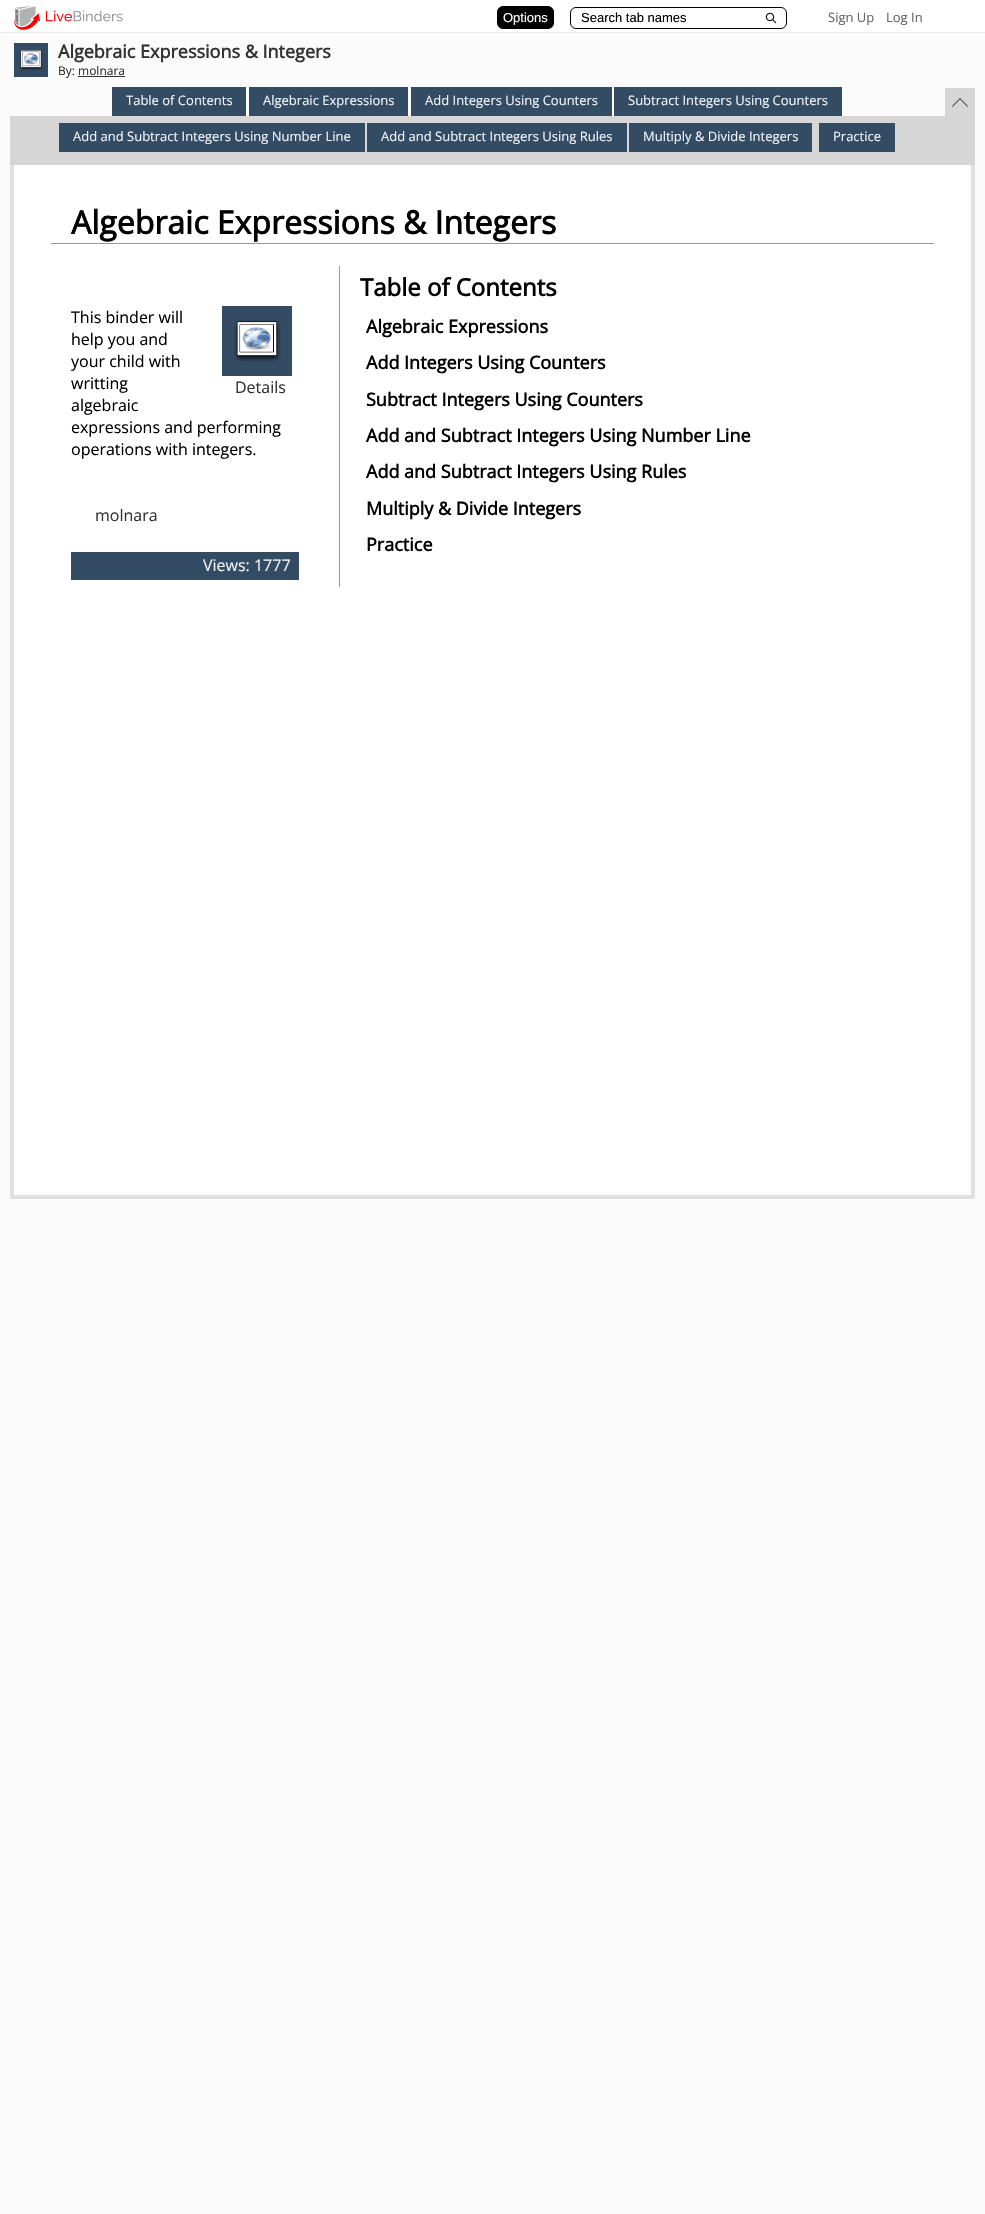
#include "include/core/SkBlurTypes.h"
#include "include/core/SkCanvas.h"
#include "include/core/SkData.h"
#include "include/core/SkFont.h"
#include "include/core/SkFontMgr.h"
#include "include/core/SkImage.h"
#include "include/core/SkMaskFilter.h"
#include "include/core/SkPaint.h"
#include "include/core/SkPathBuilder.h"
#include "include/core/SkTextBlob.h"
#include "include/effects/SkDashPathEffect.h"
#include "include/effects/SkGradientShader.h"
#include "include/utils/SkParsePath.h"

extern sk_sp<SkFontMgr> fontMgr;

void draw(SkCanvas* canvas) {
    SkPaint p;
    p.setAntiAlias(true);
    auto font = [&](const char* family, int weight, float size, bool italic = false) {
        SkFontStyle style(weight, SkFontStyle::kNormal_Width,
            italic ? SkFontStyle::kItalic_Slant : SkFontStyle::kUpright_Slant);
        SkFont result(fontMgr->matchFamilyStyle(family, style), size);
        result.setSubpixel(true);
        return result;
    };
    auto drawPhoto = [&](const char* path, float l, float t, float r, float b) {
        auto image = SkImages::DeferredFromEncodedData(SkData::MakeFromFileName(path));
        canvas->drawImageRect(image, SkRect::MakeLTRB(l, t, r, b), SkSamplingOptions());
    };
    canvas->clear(0xFFFBFBFB);
    p.setColor(0xFFFFFFFF);
    canvas->drawRect(SkRect::MakeLTRB(0, 0, 985, 32), p);
    p.setColor(0xFFEBEBEB);
    canvas->drawRect(SkRect::MakeLTRB(0, 32, 985, 33), p);
    drawPhoto("media/1.png", 14, 6, 123, 30);
    p.setColor(0xFF000000);
    canvas->drawRoundRect(SkRect::MakeLTRB(497.5f, 6.5f, 553.5f, 28.5f), 5.5f, 5.5f, p);
    p.setStyle(SkPaint::kStroke_Style);
    p.setStrokeWidth(1);
    canvas->drawRoundRect(SkRect::MakeLTRB(497.5f, 6.5f, 553.5f, 28.5f), 5.5f, 5.5f, p);
    auto font1 = font("Liberation Sans", 400, 13);
    p.setStyle(SkPaint::kFill_Style);
    p.setColor(0xFFFFFFFF);
    canvas->drawString("Options", 503, 22, font1, p);
    drawPhoto("media/2.png", 765, 12, 777, 24);
    p.setStyle(SkPaint::kStroke_Style);
    p.setColor(0xFF000000);
    canvas->drawRoundRect(SkRect::MakeLTRB(570.5f, 7.5f, 786.5f, 28.5f), 5.5f, 5.5f, p);
    p.setStyle(SkPaint::kFill_Style);
    canvas->drawString("Search tab names", 581, 22, font1, p);
    auto font2 = font("Open Sans", 400, 13);
    p.setColor(0xFF666666);
    canvas->drawString("Sign Up", 828, 22, font2, p);
    canvas->drawString("Log In", 886, 22, font2, p);
    p.setColor(0xFF334B63);
    canvas->drawRect(SkRect::MakeLTRB(14, 43, 48, 77), p);
    drawPhoto("media/3.png", 19, 50, 43, 71);
    auto font3 = font("Open Sans", 700, 18);
    p.setColor(0xFF333333);
    canvas->drawString("Algebraic Expressions & Integers", 58, 58, font3, p);
    auto font4 = font("Open Sans", 400, 12);
    canvas->drawString("By: molnara", 58, 75, font4, p);
    {
        const struct { float l, t, r, b; SkColor color; } items[] = {
            {78, 76, 125, 77, 0xFF333333},
            {10, 116, 975, 165, 0xFFD6D6D6},
            {112, 87, 246, 116, 0xFF334B63},
        };
        for (auto [l, t, r, b, color] : items) {
            p.setColor(color);
            canvas->drawRect(SkRect::MakeLTRB(l, t, r, b), p);
        }
    }
    p.setColor(0xFFEEF3F7);
    canvas->drawString("Table of Contents", 126, 105, font2, p);
    p.setColor(0xFF334B63);
    canvas->drawRect(SkRect::MakeLTRB(249, 87, 408, 116), p);
    p.setColor(0xFFEEF3F7);
    canvas->drawString("Algebraic Expressions", 263, 105, font2, p);
    p.setColor(0xFF334B63);
    canvas->drawRect(SkRect::MakeLTRB(411, 87, 612, 116), p);
    p.setColor(0xFFEEF3F7);
    canvas->drawString("Add Integers Using Counters", 425, 105, font2, p);
    p.setColor(0xFF334B63);
    canvas->drawRect(SkRect::MakeLTRB(614, 87, 842, 116), p);
    p.setColor(0xFFEEF3F7);
    canvas->drawString("Subtract Integers Using Counters", 628, 105, font2, p);
    p.setColor(0xFF334B63);
    canvas->drawRect(SkRect::MakeLTRB(59, 123, 365, 152), p);
    p.setColor(0xFFEEF3F7);
    canvas->drawString("Add and Subtract Integers Using Number Line", 73, 141, font2, p);
    p.setColor(0xFF334B63);
    canvas->drawRect(SkRect::MakeLTRB(367, 123, 627, 152), p);
    p.setColor(0xFFEEF3F7);
    canvas->drawString("Add and Subtract Integers Using Rules", 381, 141, font2, p);
    p.setColor(0xFF334B63);
    canvas->drawRect(SkRect::MakeLTRB(629, 123, 812, 152), p);
    p.setColor(0xFFEEF3F7);
    canvas->drawString("Multiply & Divide Integers", 643, 141, font2, p);
    p.setColor(0xFF334B63);
    canvas->drawRect(SkRect::MakeLTRB(819, 123, 895, 152), p);
    p.setColor(0xFFEEF3F7);
    canvas->drawString("Practice", 833, 141, font2, p);
    drawPhoto("media/4.png", 945, 88, 975, 116);
    {
        const struct { float l, t, r, b; SkColor color; } items[] = {
            {14, 165, 971, 1195, 0xFFFFFFFF},
            {971, 165, 975, 1199, 0xFFE0E0E0},
            {10, 1195, 975, 1199, 0xFFE0E0E0},
            {10, 165, 14, 1199, 0xFFE0E0E0},
            {51, 243, 934, 244, 0xFF999999},
        };
        for (auto [l, t, r, b, color] : items) {
            p.setColor(color);
            canvas->drawRect(SkRect::MakeLTRB(l, t, r, b), p);
        }
    }
    auto font5 = font("Open Sans", 700, 32);
    p.setColor(0xFF000000);
    canvas->drawString("Algebraic Expressions & Integers", 71, 234, font5, p);
    p.setColor(0xFF999999);
    canvas->drawRect(SkRect::MakeLTRB(339, 266, 340, 587), p);
    auto font6 = font("Open Sans", 700, 24);
    p.setColor(0xFF000000);
    canvas->drawString("Table of Contents", 360, 296, font6, p);
    auto font7 = font("Open Sans", 400, 16);
    {
        const struct { const char* s; float x, y; } items[] = {
            {"This binder will", 71, 323},
            {"help you and", 71, 345},
            {"your child with", 71, 367},
            {"writting", 71, 389},
        };
        for (auto [s, x, y] : items) {
            canvas->drawString(s, x, y, font7, p);
        }
    }
    p.setColor(0xFF334B63);
    canvas->drawRect(SkRect::MakeLTRB(222, 306, 292, 376), p);
    drawPhoto("media/5.png", 234, 320, 281, 362);
    p.setColor(0xFF333333);
    canvas->drawString("Details", 235, 393, font7, p);
    p.setColor(0xFF000000);
    {
        const struct { const char* s; float x, y; } items[] = {
            {"algebraic", 71, 411},
            {"expressions and performing", 71, 433},
            {"operations with integers.", 71, 455},
        };
        for (auto [s, x, y] : items) {
            canvas->drawString(s, x, y, font7, p);
        }
    }
    p.setColor(0xFF333333);
    canvas->drawString("molnara", 95, 521, font7, p);
    p.setColor(0xFF334B63);
    canvas->drawRect(SkRect::MakeLTRB(71, 552, 299, 580), p);
    p.setColor(0xFFEEF3F7);
    canvas->drawString("Views: 1777", 203, 571, font7, p);
    p.setColor(0xFF000000);
    {
        const struct { const char* s; float x, y; } items[] = {
            {"Algebraic Expressions", 366, 333},
            {"Add Integers Using Counters", 366, 369},
            {"Subtract Integers Using Counters", 366, 406},
            {"Add and Subtract Integers Using Number Line", 366, 442},
            {"Add and Subtract Integers Using Rules", 366, 478},
            {"Multiply & Divide Integers", 366, 515},
            {"Practice", 366, 551},
        };
        for (auto [s, x, y] : items) {
            canvas->drawString(s, x, y, font3, p);
        }
    }
}
